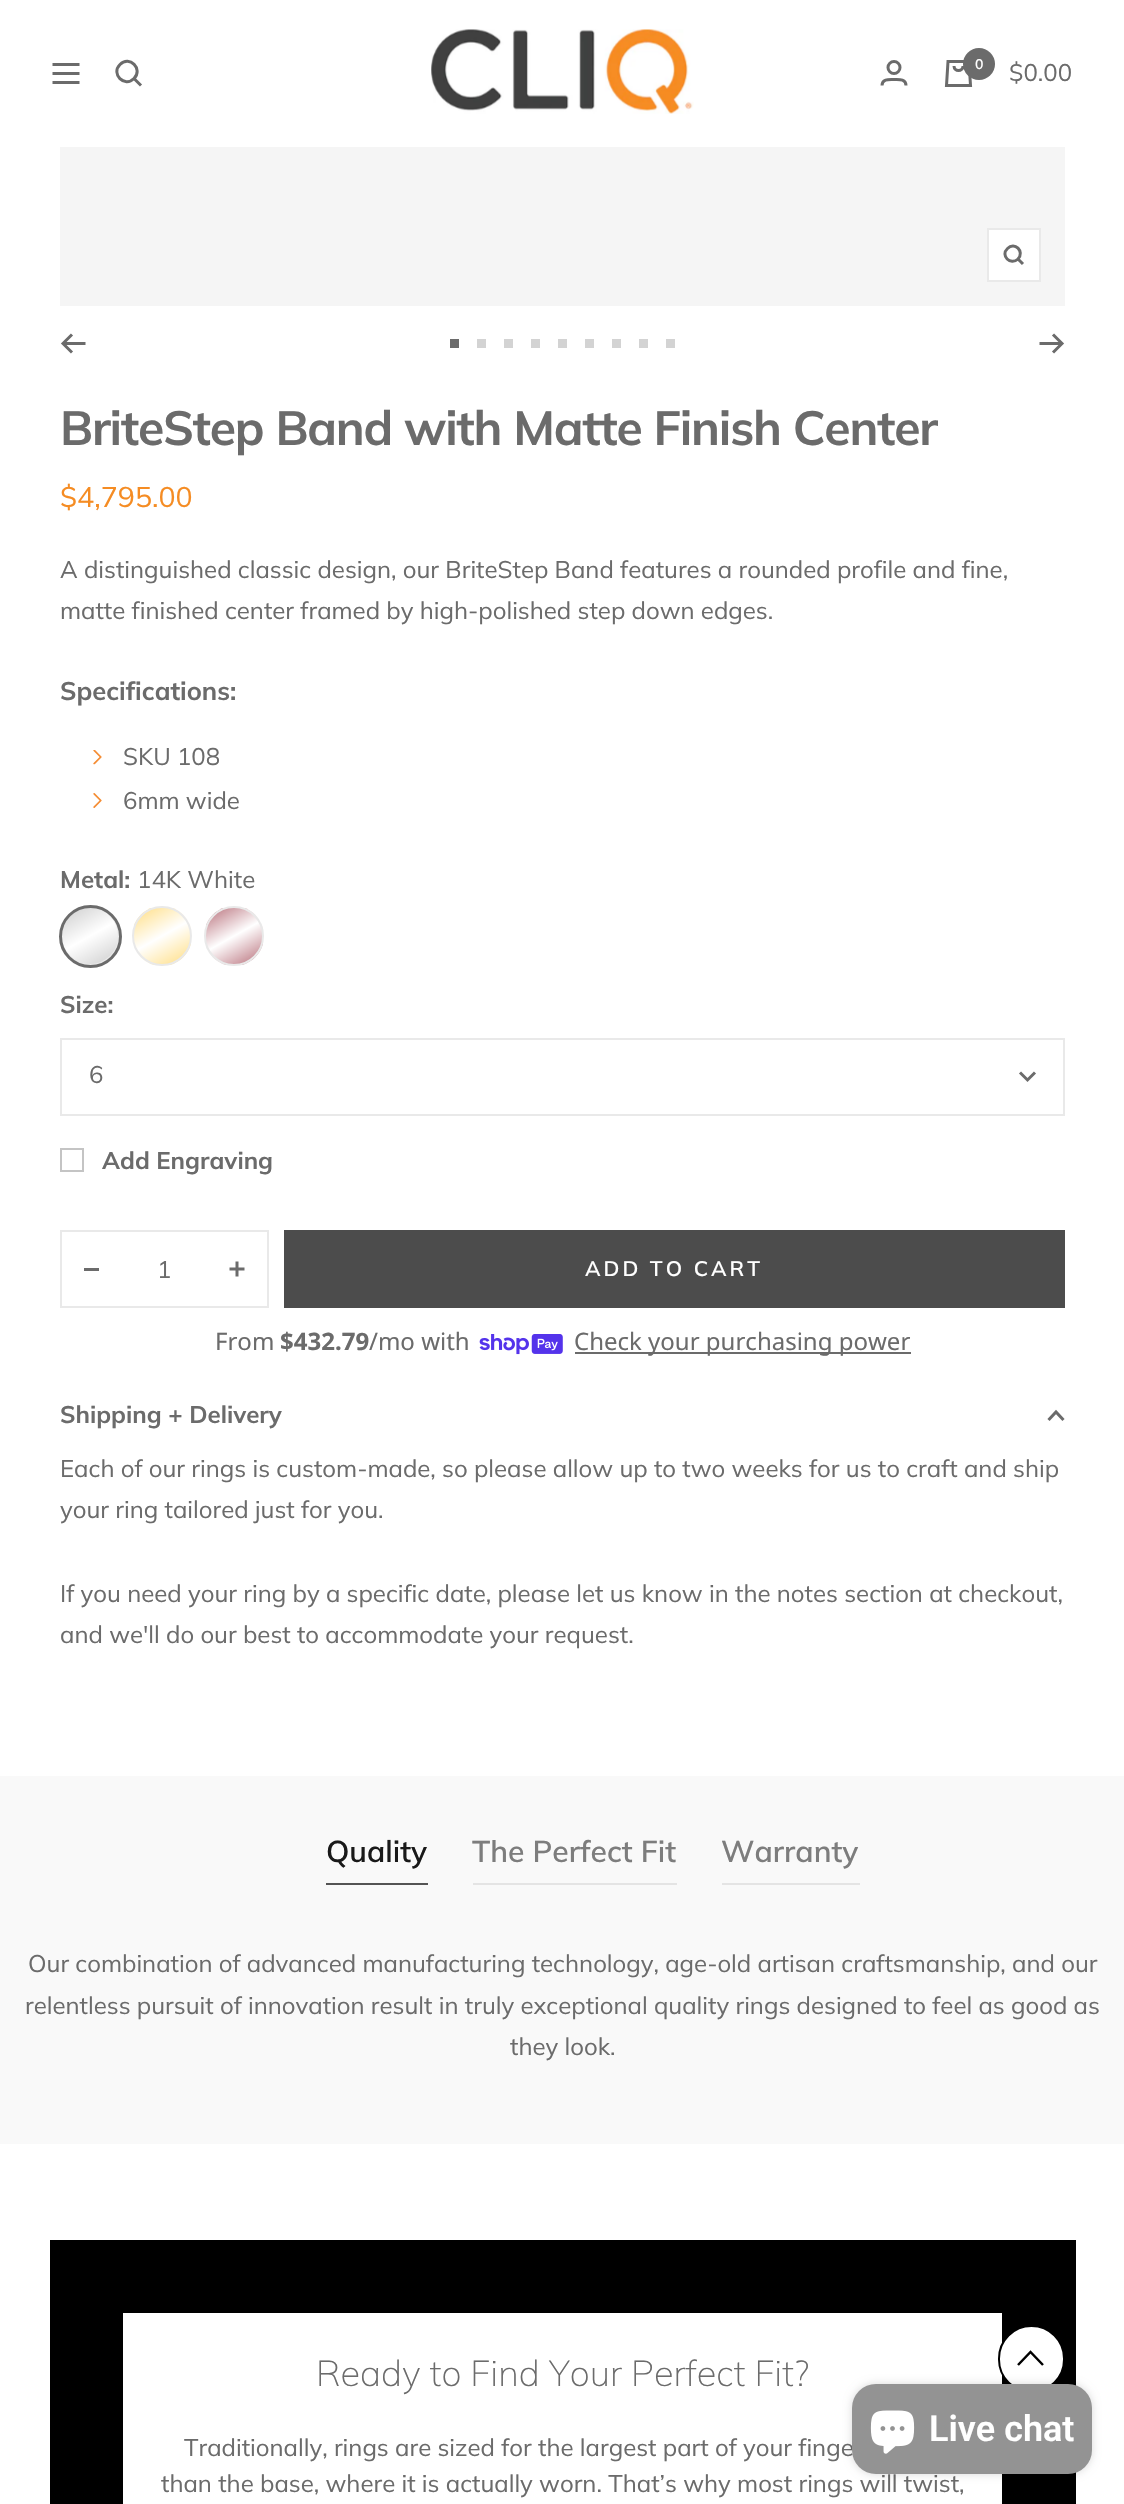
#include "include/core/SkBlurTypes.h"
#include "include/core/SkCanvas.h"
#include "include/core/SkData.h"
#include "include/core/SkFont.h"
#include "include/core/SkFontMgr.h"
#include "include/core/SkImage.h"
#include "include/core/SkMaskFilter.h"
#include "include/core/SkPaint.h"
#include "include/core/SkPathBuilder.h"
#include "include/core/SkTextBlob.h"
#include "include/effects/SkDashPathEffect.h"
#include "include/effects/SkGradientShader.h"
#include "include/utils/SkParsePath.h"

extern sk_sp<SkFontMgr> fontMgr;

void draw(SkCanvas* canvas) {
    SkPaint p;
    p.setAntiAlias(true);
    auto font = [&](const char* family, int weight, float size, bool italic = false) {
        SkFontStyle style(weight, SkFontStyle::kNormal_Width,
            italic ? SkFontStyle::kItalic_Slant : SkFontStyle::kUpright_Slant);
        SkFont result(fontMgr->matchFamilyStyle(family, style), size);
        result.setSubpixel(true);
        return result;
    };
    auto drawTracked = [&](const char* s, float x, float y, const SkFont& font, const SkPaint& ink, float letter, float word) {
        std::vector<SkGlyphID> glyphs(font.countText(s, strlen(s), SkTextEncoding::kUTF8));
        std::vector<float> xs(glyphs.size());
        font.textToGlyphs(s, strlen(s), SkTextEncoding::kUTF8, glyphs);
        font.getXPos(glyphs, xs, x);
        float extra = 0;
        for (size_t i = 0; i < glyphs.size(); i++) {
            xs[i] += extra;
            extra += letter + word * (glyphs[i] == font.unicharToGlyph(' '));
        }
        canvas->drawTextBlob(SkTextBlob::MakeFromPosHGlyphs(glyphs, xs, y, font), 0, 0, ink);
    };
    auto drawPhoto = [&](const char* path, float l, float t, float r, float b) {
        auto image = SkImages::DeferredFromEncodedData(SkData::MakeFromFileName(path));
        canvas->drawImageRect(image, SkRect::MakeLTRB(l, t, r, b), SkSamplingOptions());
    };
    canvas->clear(0xFFFFFFFF);
    p.setStyle(SkPaint::kStroke_Style);
    p.setStrokeWidth(3);
    p.setColor(0xFF6B6B6B);
    canvas->drawPath(SkPathBuilder().moveTo(52.5f, 64.5f).lineTo(79.5f, 64.5f).moveTo(52.5f, 82.5f).lineTo(79.5f, 82.5f).close().moveTo(52.5f, 73.5f).lineTo(79.5f, 73.5f).close().detach(), p);
    canvas->drawPath(SkPathBuilder().moveTo(134, 78.5f).cubicTo(143.5f, 69, 129.5f, 55, 120, 64.5f).cubicTo(110.5f, 74, 124.5f, 88, 134, 78.5f).close().moveTo(134, 78.5f).lineTo(141, 85.5f).detach(), p);
    drawPhoto("media/1.png", 431, 29, 694, 114);
    canvas->drawCircle(894, 67.5f, 6, p);
    canvas->drawPath(SkPathBuilder().moveTo(882, 85.5f).cubicTo(882, 78.5f, 889.5f, 79.5f, 894, 79.5f).cubicTo(898.5f, 79.5f, 906, 78.5f, 906, 85.5f).detach(), p);
    canvas->drawPath(SkPathBuilder().moveTo(948, 61.5f).lineTo(969, 61.5f).lineTo(970.5f, 85.5f).lineTo(946.5f, 85.5f).close().moveTo(954, 66).cubicTo(954, 72, 963, 72, 963, 66).detach(), p);
    p.setStyle(SkPaint::kFill_Style);
    canvas->drawCircle(979, 64, 16, p);
    auto font1 = font("Muli", 600, 14);
    p.setColor(0xFFFFFFFF);
    canvas->drawString("0", 975, 69, font1, p);
    auto font2 = font("Muli", 400, 24);
    p.setColor(0xFF6B6B6B);
    canvas->drawString("$0.00", 1009, 81, font2, p);
    p.setColor(0xFFF5F5F5);
    canvas->drawRect(SkRect::MakeLTRB(60, 147, 1065, 306), p);
    p.setColor(0xFFFFFFFF);
    canvas->drawRect(SkRect::MakeLTRB(988, 229, 1040, 281), p);
    p.setStyle(SkPaint::kStroke_Style);
    p.setStrokeWidth(2);
    p.setColor(0xFFE9E9E9);
    canvas->drawRect(SkRect::MakeLTRB(988, 229, 1040, 281), p);
    p.setStrokeWidth(3);
    p.setColor(0xFF6B6B6B);
    canvas->drawPath(SkPathBuilder().moveTo(1018, 259).cubicTo(1025, 251.5f, 1014.5f, 241, 1007.5f, 248.5f).cubicTo(1000, 255.5f, 1010.5f, 266, 1018, 259).close().moveTo(1018, 259).lineTo(1023, 264).detach(), p);
    canvas->drawPath(SkPathBuilder().moveTo(85.5f, 343.5f).lineTo(63, 343.5f).moveTo(72, 334.5f).lineTo(63, 343.5f).lineTo(72, 352.5f).detach(), p);
    p.setStyle(SkPaint::kFill_Style);
    {
        const struct { float l, t, r, b; SkColor color; } items[] = {
            {450, 339, 459, 348, 0xFF6B6B6B},
            {477, 339, 486, 348, 0xFFD3D3D3},
            {504, 339, 513, 348, 0xFFD3D3D3},
            {531, 339, 540, 348, 0xFFD3D3D3},
            {558, 339, 567, 348, 0xFFD3D3D3},
            {585, 339, 594, 348, 0xFFD3D3D3},
            {612, 339, 621, 348, 0xFFD3D3D3},
            {639, 339, 648, 348, 0xFFD3D3D3},
            {666, 339, 675, 348, 0xFFD3D3D3},
        };
        for (auto [l, t, r, b, color] : items) {
            p.setColor(color);
            canvas->drawRect(SkRect::MakeLTRB(l, t, r, b), p);
        }
    }
    p.setStyle(SkPaint::kStroke_Style);
    p.setColor(0xFF6B6B6B);
    canvas->drawPath(SkPathBuilder().moveTo(1039.5f, 343.5f).lineTo(1062, 343.5f).moveTo(1053, 334.5f).lineTo(1062, 343.5f).lineTo(1053, 352.5f).detach(), p);
    auto font3 = font("Muli", 700, 48);
    p.setStyle(SkPaint::kFill_Style);
    drawTracked("BriteStep Band with Matte Finish Center", 60, 445, font3, p, -1.2f, 0);
    auto font4 = font("Muli", 400, 28.5f);
    p.setColor(0xFFF58C23);
    canvas->drawString("$4,795.00", 60, 507, font4, p);
    p.setColor(0xFF6B6B6B);
    canvas->drawString("A distinguished classic design, our BriteStep Band features a rounded profile and fine,", 60, 578, font2, p);
    canvas->drawString("matte finished center framed by high-polished step down edges.", 60, 619, font2, p);
    auto font5 = font("Muli", 700, 25.5f);
    canvas->drawString("Specifications:", 60, 700, font5, p);
    drawPhoto("media/2.png", 93, 750, 102, 765);
    canvas->drawString("SKU 108", 123, 765, font2, p);
    drawPhoto("media/3.png", 93, 793, 102, 808);
    canvas->drawString("6mm wide", 123, 809, font2, p);
    auto font6 = font("Muli", 700, 24);
    canvas->drawString("Metal:", 60, 888, font6, p);
    canvas->drawString("14K White", 137, 888, font2, p);
    canvas->save();
    canvas->clipPath(SkPathBuilder().moveTo(90, 906).cubicTo(106.5f, 906, 120, 919.5f, 120, 936).cubicTo(120, 952.5f, 106.5f, 966, 90, 966).cubicTo(73.5f, 966, 60, 952.5f, 60, 936).cubicTo(60, 919.5f, 73.5f, 906, 90, 906).close().detach(), true);
    {
        const SkColor colors[] = {0xFFCCCCCC, 0xFFFFFFFF, 0xFFCCCCCC};
        const float stops[] = {0, 0.5f, 1};
        const SkPoint ends[] = {{109, 970}, {71, 902}};
        p.setShader(SkGradientShader::MakeLinear(ends, colors, stops, 3, SkTileMode::kClamp));
        p.setAlpha(255);
    }
    canvas->drawRect(SkRect::MakeLTRB(62, 908, 119, 965), p);
    canvas->restore();
    p.setStyle(SkPaint::kStroke_Style);
    p.setStrokeWidth(2);
    p.setShader(nullptr);
    p.setColor(0xFFE9E9E9);
    canvas->drawCircle(90, 936, 29, p);
    p.setStrokeWidth(3);
    p.setColor(0xFF6B6B6B);
    canvas->drawCircle(90.5f, 936.5f, 30, p);
    canvas->save();
    canvas->clipPath(SkPathBuilder().moveTo(162, 906).cubicTo(178.5f, 906, 192, 919.5f, 192, 936).cubicTo(192, 952.5f, 178.5f, 966, 162, 966).cubicTo(145.5f, 966, 132, 952.5f, 132, 936).cubicTo(132, 919.5f, 145.5f, 906, 162, 906).close().detach(), true);
    p.setStyle(SkPaint::kFill_Style);
    {
        const SkColor colors[] = {0xFFFFDD80, 0xFFFFFFFF, 0xFFFFDD80};
        const float stops[] = {0, 0.5f, 1};
        const SkPoint ends[] = {{181, 970}, {143, 902}};
        p.setShader(SkGradientShader::MakeLinear(ends, colors, stops, 3, SkTileMode::kClamp));
        p.setAlpha(255);
    }
    canvas->drawRect(SkRect::MakeLTRB(134, 908, 191, 965), p);
    canvas->restore();
    p.setStyle(SkPaint::kStroke_Style);
    p.setStrokeWidth(2);
    p.setShader(nullptr);
    p.setColor(0xFFE9E9E9);
    canvas->drawCircle(162, 936, 29, p);
    canvas->save();
    canvas->clipPath(SkPathBuilder().moveTo(234, 906).cubicTo(250.5f, 906, 264, 919.5f, 264, 936).cubicTo(264, 952.5f, 250.5f, 966, 234, 966).cubicTo(217.5f, 966, 204, 952.5f, 204, 936).cubicTo(204, 919.5f, 217.5f, 906, 234, 906).close().detach(), true);
    p.setStyle(SkPaint::kFill_Style);
    {
        const SkColor colors[] = {0xFFB76E79, 0xFFFFFFFF, 0xFFB76E79};
        const float stops[] = {0, 0.5f, 1};
        const SkPoint ends[] = {{253, 970}, {215, 902}};
        p.setShader(SkGradientShader::MakeLinear(ends, colors, stops, 3, SkTileMode::kClamp));
        p.setAlpha(255);
    }
    canvas->drawRect(SkRect::MakeLTRB(206, 908, 263, 965), p);
    canvas->restore();
    p.setStyle(SkPaint::kStroke_Style);
    p.setShader(nullptr);
    p.setColor(0xFFE9E9E9);
    canvas->drawCircle(234, 936, 29, p);
    p.setStyle(SkPaint::kFill_Style);
    p.setColor(0xFF6B6B6B);
    canvas->drawString("Size:", 60, 1013, font6, p);
    p.setStyle(SkPaint::kStroke_Style);
    p.setColor(0xFFE9E9E9);
    canvas->drawRect(SkRect::MakeLTRB(61, 1039, 1064, 1115), p);
    p.setStyle(SkPaint::kFill_Style);
    p.setColor(0xFF6B6B6B);
    canvas->drawString("6", 89, 1083, font2, p);
    p.setStyle(SkPaint::kStroke_Style);
    p.setStrokeWidth(3);
    canvas->drawPath(SkPathBuilder().moveTo(1020, 1072.5f).lineTo(1027.5f, 1080).lineTo(1035, 1072.5f).detach(), p);
    p.setStrokeWidth(2);
    p.setColor(0xFFC4C4C4);
    canvas->drawRect(SkRect::MakeLTRB(61, 1149, 83, 1171), p);
    p.setStyle(SkPaint::kFill_Style);
    p.setColor(0xFF6B6B6B);
    canvas->drawString("Add Engraving", 102, 1169, font6, p);
    p.setStyle(SkPaint::kStroke_Style);
    p.setColor(0xFFE9E9E9);
    canvas->drawRect(SkRect::MakeLTRB(61, 1231, 268, 1307), p);
    p.setStyle(SkPaint::kFill_Style);
    p.setColor(0xFF6B6B6B);
    canvas->drawRect(SkRect::MakeLTRB(84, 1268, 99, 1271), p);
    canvas->drawString("1", 157, 1278, font2, p);
    drawPhoto("media/4.png", 229, 1261, 245, 1277);
    p.setColor(0xFF4C4C4C);
    canvas->drawRect(SkRect::MakeLTRB(284, 1230, 1065, 1308), p);
    auto font7 = font("Muli", 600, 21);
    p.setColor(0xFFFFFFFF);
    drawTracked("ADD TO CART", 585, 1276, font7, p, 3, 0);
    auto font8 = font("Noto Sans", 400, 24);
    p.setColor(0xFF6B6B6B);
    canvas->drawString("From", 215, 1350, font8, p);
    auto font9 = font("Noto Sans", 700, 24);
    canvas->drawString("$432.79", 280, 1350, font9, p);
    canvas->drawString("/mo with", 369, 1350, font8, p);
    drawPhoto("media/5.png", 479, 1334, 563, 1355);
    canvas->drawRect(SkRect::MakeLTRB(575, 1352, 911, 1354), p);
    canvas->drawString("Check your purchasing power", 574, 1350, font8, p);
    canvas->drawString("Shipping + Delivery", 60, 1423, font6, p);
    p.setStyle(SkPaint::kStroke_Style);
    p.setStrokeWidth(3);
    canvas->drawPath(SkPathBuilder().moveTo(1063.5f, 1420).lineTo(1056, 1412).lineTo(1048.5f, 1420).detach(), p);
    p.setStyle(SkPaint::kFill_Style);
    {
        const struct { const char* s; float x, y; } items[] = {
            {"Each of our rings is custom-made, so please allow up to two weeks for us to craft and ship", 60, 1477},
            {"your ring tailored just for you.", 60, 1518},
            {"If you need your ring by a specific date, please let us know in the notes section at checkout,", 60, 1602},
            {"and we'll do our best to accommodate your request.", 60, 1643},
        };
        for (auto [s, x, y] : items) {
            canvas->drawString(s, x, y, font2, p);
        }
    }
    p.setColor(0xFFF9F9F9);
    canvas->drawRect(SkRect::MakeLTRB(0, 1776, 1124, 2144), p);
    p.setColor(0xFF545454);
    canvas->drawRect(SkRect::MakeLTRB(326, 1883, 428, 1885), p);
    auto font10 = font("Muli", 600, 30);
    p.setColor(0xFF191919);
    canvas->drawString("Quality", 326, 1862, font10, p);
    p.setColor(0xFFE4E4E4);
    canvas->drawRect(SkRect::MakeLTRB(473, 1883, 677, 1885), p);
    p.setColor(0xFF7D7D7D);
    canvas->drawString("The Perfect Fit", 472, 1862, font10, p);
    p.setColor(0xFFE4E4E4);
    canvas->drawRect(SkRect::MakeLTRB(722, 1883, 860, 1885), p);
    p.setColor(0xFF7D7D7D);
    canvas->drawString("Warranty", 721, 1862, font10, p);
    p.setColor(0xFF6B6B6B);
    {
        const struct { const char* s; float x, y; } items[] = {
            {"Our combination of advanced manufacturing technology, age-old artisan craftsmanship, and our", 28, 1972},
            {"relentless pursuit of innovation result in truly exceptional quality rings designed to feel as good as", 25, 2014},
            {"they look.", 510, 2055},
        };
        for (auto [s, x, y] : items) {
            canvas->drawString(s, x, y, font2, p);
        }
    }
    p.setColor(0xFF000000);
    canvas->drawRect(SkRect::MakeLTRB(50, 2240, 1076, 2504), p);
    p.setColor(0xFFFFFFFF);
    canvas->drawRect(SkRect::MakeLTRB(123, 2313, 1002, 2504), p);
    auto font11 = font("Muli", 200, 36);
    p.setColor(0xFF6B6B6B);
    canvas->drawString("Ready to Find Your Perfect Fit?", 316, 2386, font11, p);
    canvas->drawString("Traditionally, rings are sized for the largest part of your finge", 184, 2456, font2, p);
    canvas->drawString("than the base, where it is actually worn. That’s why most rings will twist,", 161, 2492, font2, p);
    p.setColor(0xFFFFFFFF);
    canvas->drawRoundRect(SkRect::MakeLTRB(999, 2326, 1064, 2392), 32.5f, 32.5f, p);
    p.setStyle(SkPaint::kStroke_Style);
    p.setStrokeWidth(2);
    p.setColor(0xFF000000);
    canvas->drawRoundRect(SkRect::MakeLTRB(999, 2326, 1064, 2392), 32.5f, 32.5f, p);
    p.setStrokeWidth(2.5f);
    canvas->drawPath(SkPathBuilder().moveTo(1043, 2365).lineTo(1030.5f, 2352).lineTo(1018, 2365).detach(), p);
    p.setStyle(SkPaint::kFill_Style);
    p.setColor(0x26000000);
    p.setMaskFilter(SkMaskFilter::MakeBlur(kNormal_SkBlurStyle, 4));
    canvas->drawRoundRect(SkRect::MakeLTRB(852, 2384, 1092, 2474), 24, 24, p);
    p.setMaskFilter(nullptr);
    p.setColor(0xFF939393);
    canvas->drawRoundRect(SkRect::MakeLTRB(852, 2384, 1092, 2474), 24, 24, p);
    drawPhoto("media/6.png", 870, 2410, 915, 2454);
    auto font12 = font("Roboto", 600, 36);
    p.setColor(0xFFFFFFFF);
    canvas->drawString("Live chat", 929, 2441, font12, p);
}
